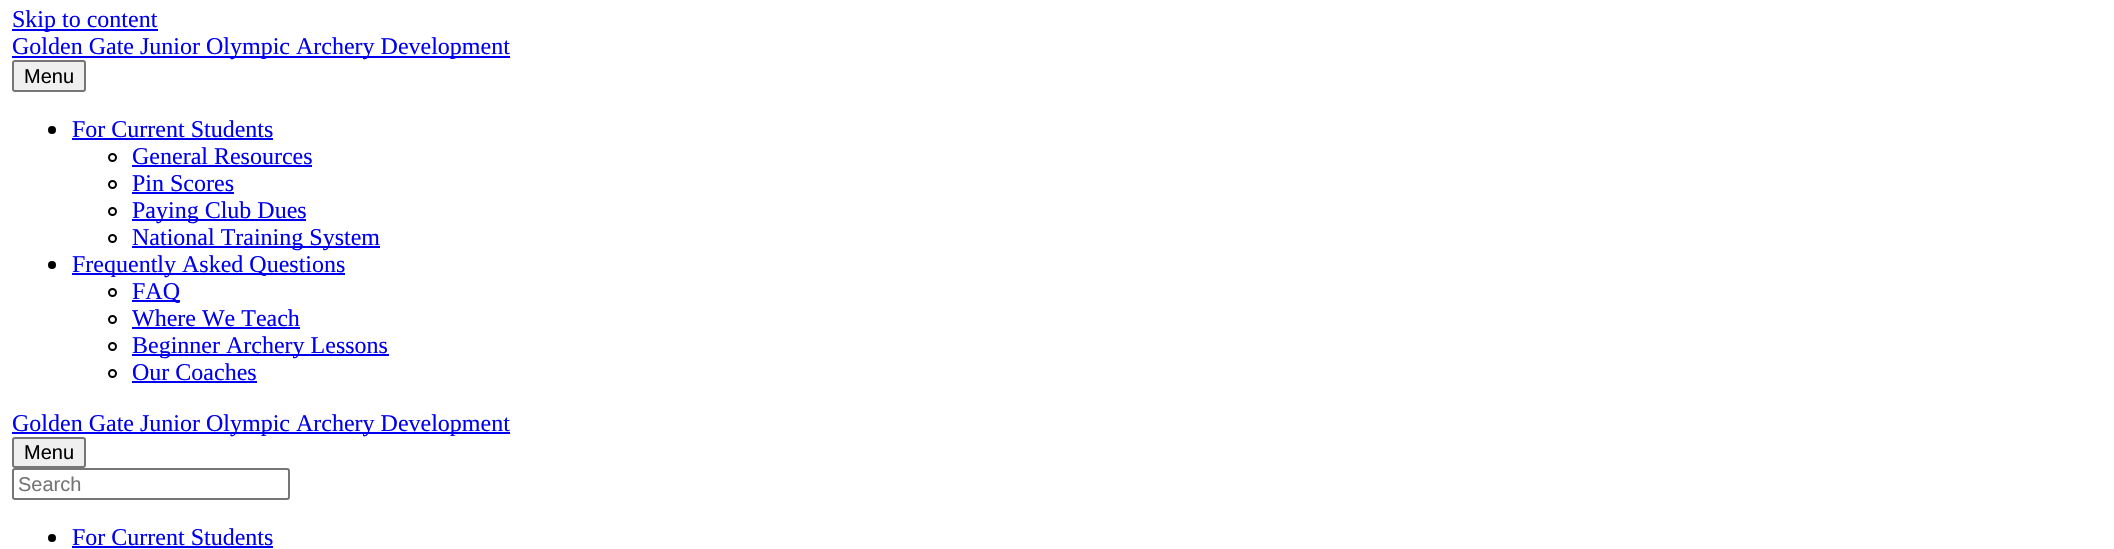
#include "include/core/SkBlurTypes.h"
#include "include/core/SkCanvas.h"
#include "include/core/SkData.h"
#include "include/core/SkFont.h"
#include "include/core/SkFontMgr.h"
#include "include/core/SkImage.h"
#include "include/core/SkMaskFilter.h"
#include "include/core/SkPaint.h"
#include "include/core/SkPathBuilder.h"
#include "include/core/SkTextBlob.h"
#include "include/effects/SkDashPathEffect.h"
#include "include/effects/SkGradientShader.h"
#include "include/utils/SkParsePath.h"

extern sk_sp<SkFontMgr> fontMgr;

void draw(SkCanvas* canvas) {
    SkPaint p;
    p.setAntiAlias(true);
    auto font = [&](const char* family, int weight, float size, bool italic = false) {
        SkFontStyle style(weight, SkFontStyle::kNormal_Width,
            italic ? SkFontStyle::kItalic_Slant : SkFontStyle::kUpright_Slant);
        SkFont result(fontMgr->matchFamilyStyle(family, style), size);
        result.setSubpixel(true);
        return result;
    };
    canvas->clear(0xFFFFFFFF);
    p.setColor(0xFF0000EE);
    canvas->drawRect(SkRect::MakeLTRB(12, 29, 158, 31), p);
    auto font1 = font("Liberation Serif", 400, 24);
    canvas->drawString("Skip to content", 12, 27, font1, p);
    canvas->drawRect(SkRect::MakeLTRB(12, 56, 510, 58), p);
    canvas->drawString("Golden Gate Junior Olympic Archery Development", 12, 54, font1, p);
    p.setColor(0xFFEFEFEF);
    canvas->drawRoundRect(SkRect::MakeLTRB(13, 61, 85, 91), 2, 2, p);
    p.setStyle(SkPaint::kStroke_Style);
    p.setStrokeWidth(2);
    p.setColor(0xFF767676);
    canvas->drawRoundRect(SkRect::MakeLTRB(13, 61, 85, 91), 2, 2, p);
    auto font2 = font("Liberation Sans", 400, 20);
    p.setStyle(SkPaint::kFill_Style);
    p.setColor(0xFF000000);
    canvas->drawString("Menu", 24, 83, font2, p);
    canvas->drawCircle(52, 130, 4, p);
    p.setColor(0xFF0000EE);
    canvas->drawString("For Current Students", 72, 137, font1, p);
    canvas->drawRect(SkRect::MakeLTRB(72, 138, 273, 140), p);
    p.setStyle(SkPaint::kStroke_Style);
    p.setColor(0xFF000000);
    canvas->drawCircle(112.5f, 157.5f, 3.5f, p);
    p.setStyle(SkPaint::kFill_Style);
    p.setColor(0xFF0000EE);
    canvas->drawString("General Resources", 132, 164, font1, p);
    canvas->drawRect(SkRect::MakeLTRB(132, 165, 312, 167), p);
    p.setStyle(SkPaint::kStroke_Style);
    p.setColor(0xFF000000);
    canvas->drawCircle(112.5f, 184.5f, 3.5f, p);
    p.setStyle(SkPaint::kFill_Style);
    p.setColor(0xFF0000EE);
    canvas->drawString("Pin Scores", 132, 191, font1, p);
    canvas->drawRect(SkRect::MakeLTRB(132, 192, 234, 194), p);
    p.setStyle(SkPaint::kStroke_Style);
    p.setColor(0xFF000000);
    canvas->drawCircle(112.5f, 211.5f, 3.5f, p);
    p.setStyle(SkPaint::kFill_Style);
    p.setColor(0xFF0000EE);
    canvas->drawRect(SkRect::MakeLTRB(132, 219, 306, 221), p);
    canvas->drawString("Paying Club Dues", 132, 218, font1, p);
    p.setStyle(SkPaint::kStroke_Style);
    p.setColor(0xFF000000);
    canvas->drawCircle(112.5f, 238.5f, 3.5f, p);
    p.setStyle(SkPaint::kFill_Style);
    p.setColor(0xFF0000EE);
    canvas->drawRect(SkRect::MakeLTRB(132, 246, 380, 248), p);
    canvas->drawString("National Training System", 132, 245, font1, p);
    p.setColor(0xFF000000);
    canvas->drawCircle(52, 265, 4, p);
    p.setColor(0xFF0000EE);
    canvas->drawRect(SkRect::MakeLTRB(72, 273, 345, 275), p);
    canvas->drawString("Frequently Asked Questions", 72, 272, font1, p);
    p.setStyle(SkPaint::kStroke_Style);
    p.setColor(0xFF000000);
    canvas->drawCircle(112.5f, 292.5f, 3.5f, p);
    p.setStyle(SkPaint::kFill_Style);
    p.setColor(0xFF0000EE);
    canvas->drawRect(SkRect::MakeLTRB(132, 300, 180, 302), p);
    canvas->drawString("FAQ", 132, 299, font1, p);
    p.setStyle(SkPaint::kStroke_Style);
    p.setColor(0xFF000000);
    canvas->drawCircle(112.5f, 319.5f, 3.5f, p);
    p.setStyle(SkPaint::kFill_Style);
    p.setColor(0xFF0000EE);
    canvas->drawString("Where We Teach", 132, 326, font1, p);
    canvas->drawRect(SkRect::MakeLTRB(132, 327, 300, 329), p);
    p.setStyle(SkPaint::kStroke_Style);
    p.setColor(0xFF000000);
    canvas->drawCircle(112.5f, 346.5f, 3.5f, p);
    p.setStyle(SkPaint::kFill_Style);
    p.setColor(0xFF0000EE);
    canvas->drawRect(SkRect::MakeLTRB(132, 354, 389, 356), p);
    canvas->drawString("Beginner Archery Lessons", 132, 353, font1, p);
    p.setStyle(SkPaint::kStroke_Style);
    p.setColor(0xFF000000);
    canvas->drawCircle(112.5f, 373.5f, 3.5f, p);
    p.setStyle(SkPaint::kFill_Style);
    p.setColor(0xFF0000EE);
    canvas->drawString("Our Coaches", 132, 380, font1, p);
    canvas->drawRect(SkRect::MakeLTRB(132, 381, 257, 383), p);
    canvas->drawRect(SkRect::MakeLTRB(12, 432, 510, 434), p);
    canvas->drawString("Golden Gate Junior Olympic Archery Development", 12, 431, font1, p);
    p.setColor(0xFFEFEFEF);
    canvas->drawRoundRect(SkRect::MakeLTRB(13, 438, 85, 467), 2, 2, p);
    p.setStyle(SkPaint::kStroke_Style);
    p.setColor(0xFF767676);
    canvas->drawRoundRect(SkRect::MakeLTRB(13, 438, 85, 467), 2, 2, p);
    p.setStyle(SkPaint::kFill_Style);
    p.setColor(0xFF000000);
    canvas->drawString("Menu", 24, 459, font2, p);
    p.setStyle(SkPaint::kStroke_Style);
    p.setColor(0xFF767676);
    canvas->drawRoundRect(SkRect::MakeLTRB(13, 469, 289, 499), 2, 2, p);
    p.setStyle(SkPaint::kFill_Style);
    p.setColor(0xFF757575);
    canvas->drawString("Search", 18, 491, font2, p);
    p.setColor(0xFF000000);
    canvas->drawCircle(52, 538, 4, p);
    p.setColor(0xFF0000EE);
    canvas->drawString("For Current Students", 72, 545, font1, p);
    canvas->drawRect(SkRect::MakeLTRB(72, 546, 273, 548), p);
}
